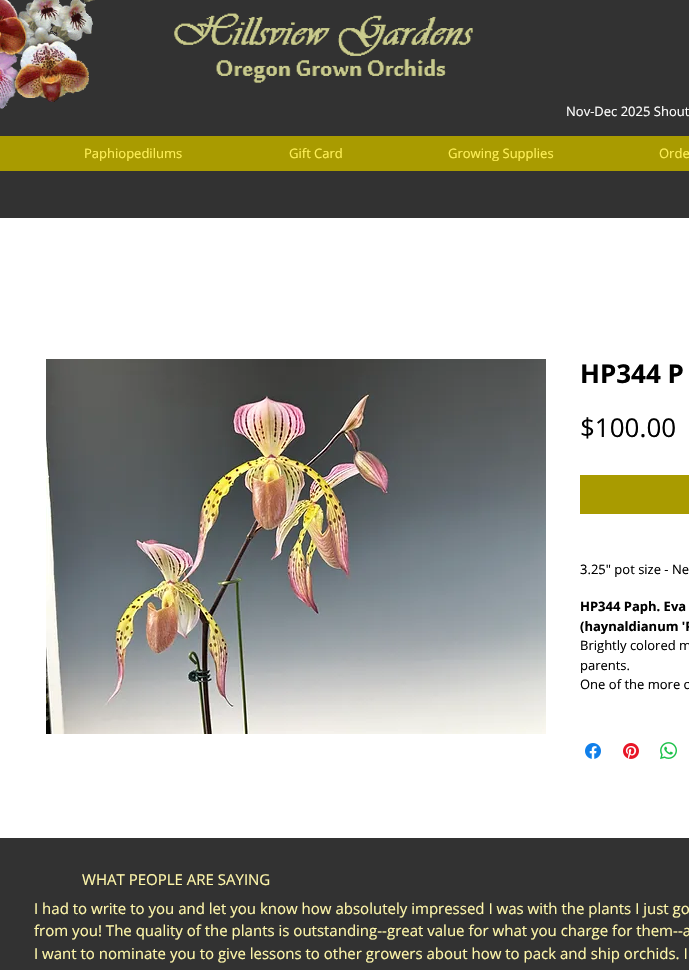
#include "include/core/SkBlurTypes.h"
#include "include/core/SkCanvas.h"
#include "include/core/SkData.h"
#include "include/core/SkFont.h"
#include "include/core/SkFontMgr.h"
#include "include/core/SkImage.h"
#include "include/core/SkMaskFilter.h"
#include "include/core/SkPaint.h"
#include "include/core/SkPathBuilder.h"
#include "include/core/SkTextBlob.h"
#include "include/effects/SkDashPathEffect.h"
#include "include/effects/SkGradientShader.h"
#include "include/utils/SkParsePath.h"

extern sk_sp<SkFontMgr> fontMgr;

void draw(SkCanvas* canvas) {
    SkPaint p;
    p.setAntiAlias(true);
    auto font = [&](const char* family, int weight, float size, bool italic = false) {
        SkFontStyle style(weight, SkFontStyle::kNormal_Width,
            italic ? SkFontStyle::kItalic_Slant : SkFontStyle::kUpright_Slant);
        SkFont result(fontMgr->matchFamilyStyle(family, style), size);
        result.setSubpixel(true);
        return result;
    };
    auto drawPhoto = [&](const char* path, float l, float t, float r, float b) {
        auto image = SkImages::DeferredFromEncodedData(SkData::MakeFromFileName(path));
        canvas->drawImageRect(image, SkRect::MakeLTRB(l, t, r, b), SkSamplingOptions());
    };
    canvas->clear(0xFF323232);
    drawPhoto("media/1.png", 0, 0, 95, 109);
    drawPhoto("media/2.png", 174, 13, 473, 83);
    auto font1 = font("Open Sans", 400, 13);
    p.setColor(0xFFFFFFFF);
    canvas->drawString("Nov-Dec 2025 Shout", 566, 116, font1, p);
    p.setColor(0xFFA99B00);
    canvas->drawRect(SkRect::MakeLTRB(0, 136, 689, 171), p);
    p.setColor(0xFFFFF056);
    {
        const struct { const char* s; float x, y; } items[] = {
            {"Paphiopedilums", 84, 158},
            {"Gift Card", 289, 158},
            {"Growing Supplies", 448, 158},
            {"Orde", 659, 158},
        };
        for (auto [s, x, y] : items) {
            canvas->drawString(s, x, y, font1, p);
        }
    }
    p.setColor(0xFFFFFFFF);
    canvas->drawRect(SkRect::MakeLTRB(0, 218, 689, 838), p);
    drawPhoto("media/3.png", 46, 359, 546, 734);
    auto font2 = font("Open Sans", 700, 26);
    p.setColor(0xFF000000);
    canvas->drawString("HP344 P", 580, 383, font2, p);
    auto font3 = font("Open Sans", 400, 26);
    canvas->drawString("$100.00", 580, 437, font3, p);
    p.setColor(0xFFA99B00);
    canvas->drawRect(SkRect::MakeLTRB(580, 475, 689, 514), p);
    p.setColor(0xFF000000);
    canvas->drawString("3.25\" pot size - Ne", 580, 574, font1, p);
    auto font4 = font("Open Sans", 700, 13);
    canvas->drawString("HP344 Paph. Eva", 580, 611, font4, p);
    canvas->drawString("(haynaldianum 'P", 580, 631, font4, p);
    {
        const struct { const char* s; float x, y; } items[] = {
            {"Brightly colored m", 580, 650},
            {"parents.", 580, 670},
            {"One of the more c", 580, 689},
        };
        for (auto [s, x, y] : items) {
            canvas->drawString(s, x, y, font1, p);
        }
    }
    drawPhoto("media/4.png", 585, 743, 601, 759);
    drawPhoto("media/5.png", 623, 743, 639, 759);
    drawPhoto("media/6.png", 660, 742, 677, 759);
    auto font5 = font("Open Sans", 400, 15);
    p.setColor(0xFFFFF7AA);
    {
        const struct { const char* s; float x, y; } items[] = {
            {"WHAT PEOPLE ARE SAYING", 82, 885},
            {"I had to write to you and let you know how absolutely impressed I was with the plants I just go", 34, 914},
            {"from you! The quality of the plants is outstanding--great value for what you charge for them--a", 34, 936},
            {"I want to nominate you to give lessons to other growers about how to pack and ship orchids. I", 34, 959},
        };
        for (auto [s, x, y] : items) {
            canvas->drawString(s, x, y, font5, p);
        }
    }
}
